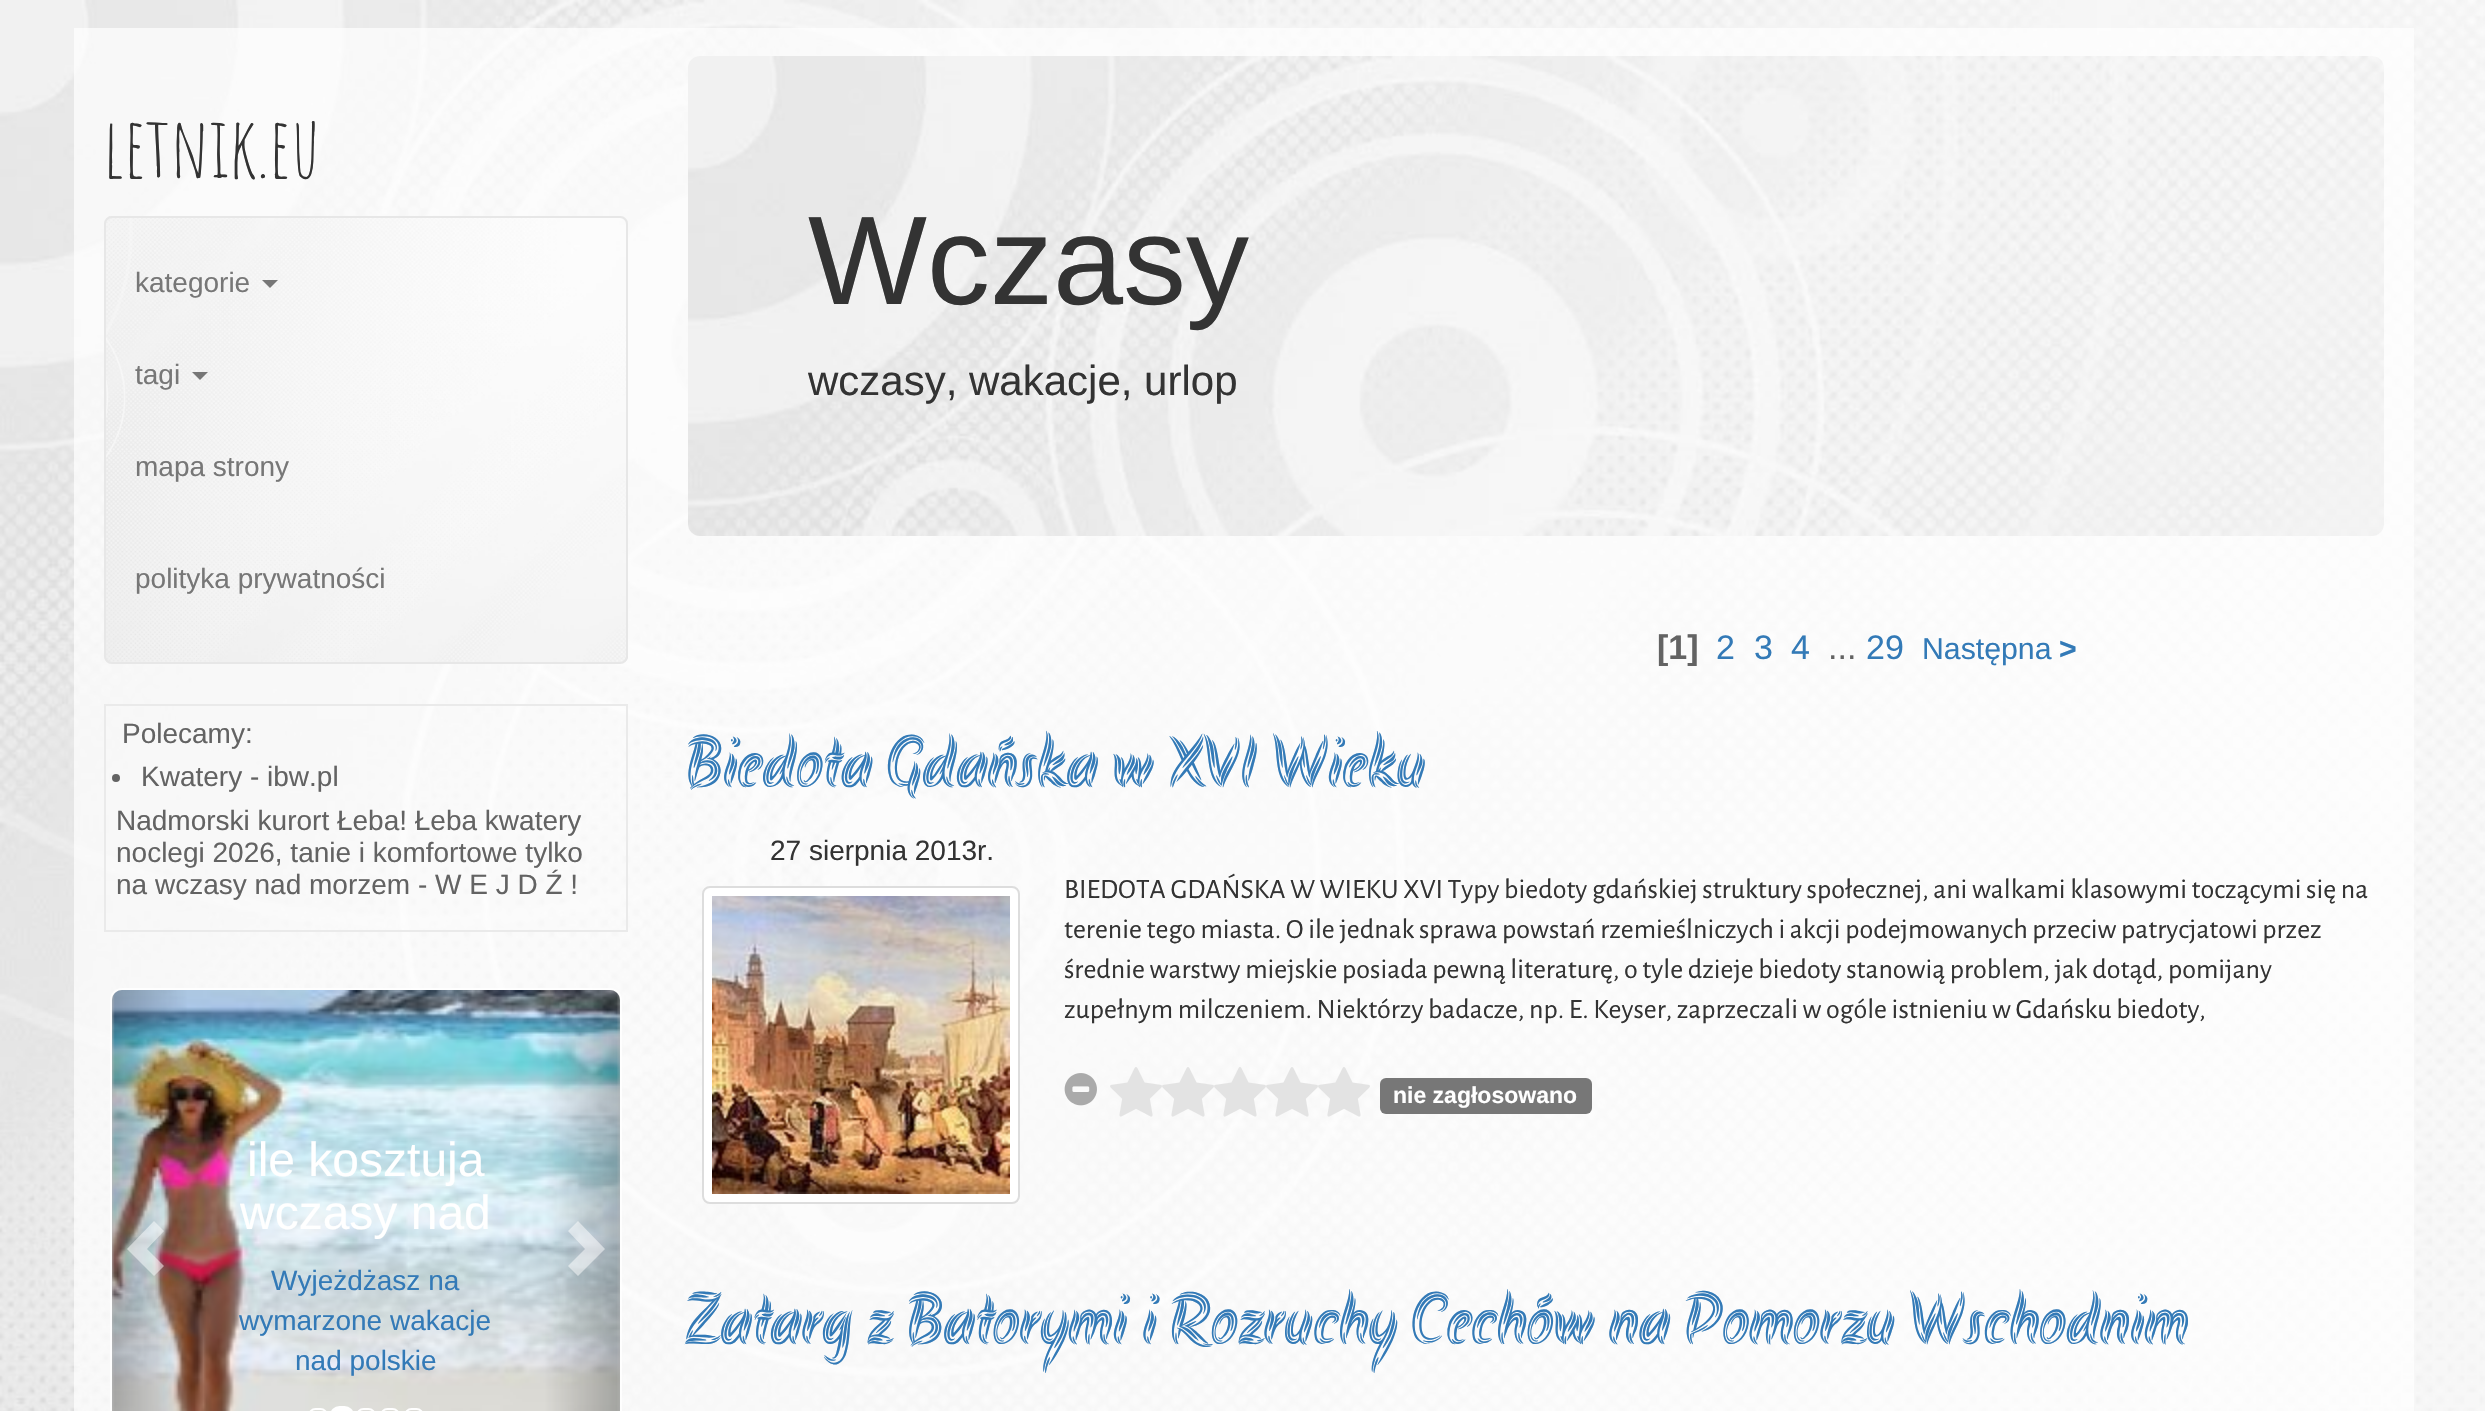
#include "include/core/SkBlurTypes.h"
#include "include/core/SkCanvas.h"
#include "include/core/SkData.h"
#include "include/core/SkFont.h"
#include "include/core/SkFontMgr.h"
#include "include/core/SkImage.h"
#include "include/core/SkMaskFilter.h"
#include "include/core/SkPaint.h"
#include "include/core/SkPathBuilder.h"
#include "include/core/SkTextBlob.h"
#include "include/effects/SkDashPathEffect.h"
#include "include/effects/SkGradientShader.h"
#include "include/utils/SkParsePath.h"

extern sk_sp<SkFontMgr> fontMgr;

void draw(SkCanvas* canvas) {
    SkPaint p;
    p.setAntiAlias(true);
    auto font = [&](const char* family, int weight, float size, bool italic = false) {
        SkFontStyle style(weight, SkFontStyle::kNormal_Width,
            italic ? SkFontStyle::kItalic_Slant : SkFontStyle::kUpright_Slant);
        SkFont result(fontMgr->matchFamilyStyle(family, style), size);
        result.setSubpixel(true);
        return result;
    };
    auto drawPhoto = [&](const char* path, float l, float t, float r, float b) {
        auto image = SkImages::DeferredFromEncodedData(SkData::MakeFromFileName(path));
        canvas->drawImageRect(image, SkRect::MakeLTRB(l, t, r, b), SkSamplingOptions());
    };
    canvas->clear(0xFFFFFFFF);
    drawPhoto("media/1.png", 0, 0, 2485, 1411);
    auto font1 = font("Amatic SC", 400, 84);
    p.setColor(0xFF333333);
    canvas->drawString("letnik.eu", 103, 178, font1, p);
    drawPhoto("media/2.png", 104, 216, 628, 664);
    p.setStyle(SkPaint::kStroke_Style);
    p.setStrokeWidth(2);
    p.setColor(0xFFE7E7E7);
    canvas->drawRoundRect(SkRect::MakeLTRB(105, 217, 627, 663), 7, 7, p);
    auto font2 = font("Liberation Sans", 400, 28);
    p.setStyle(SkPaint::kFill_Style);
    p.setColor(0xFF777777);
    canvas->drawString("kategorie", 135, 292, font2, p);
    canvas->drawPath(SkPathBuilder().moveTo(262, 280).lineTo(278, 280).lineTo(270, 288).close().detach(), p);
    canvas->drawString("tagi", 135, 384, font2, p);
    canvas->drawPath(SkPathBuilder().moveTo(192, 372).lineTo(208, 372).lineTo(200, 380).close().detach(), p);
    canvas->drawString("mapa strony", 135, 476, font2, p);
    canvas->drawString("polityka prywatności", 135, 588, font2, p);
    p.setStyle(SkPaint::kStroke_Style);
    p.setColor(0xFFEAEAEA);
    canvas->drawRect(SkRect::MakeLTRB(105, 705, 627, 931), p);
    p.setStyle(SkPaint::kFill_Style);
    p.setColor(0xFF636363);
    canvas->drawString("Polecamy:", 122, 743, font2, p);
    canvas->drawCircle(116, 778, 4, p);
    {
        const struct { const char* s; float x, y; } items[] = {
            {"Kwatery - ibw.pl", 141, 786},
            {"Nadmorski kurort Łeba! Łeba kwatery", 116, 830},
            {"noclegi 2026, tanie i komfortowe tylko", 116, 862},
            {"na wczasy nad morzem - W E J D Ź !", 116, 894},
        };
        for (auto [s, x, y] : items) {
            canvas->drawString(s, x, y, font2, p);
        }
    }
    p.setStyle(SkPaint::kStroke_Style);
    p.setColor(0xCCFFFFFF);
    canvas->drawRoundRect(SkRect::MakeLTRB(111, 989, 621, 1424), 11, 11, p);
    drawPhoto("media/3.png", 112, 990, 620, 1411);
    p.setStyle(SkPaint::kFill_Style);
    {
        const SkColor colors[] = {0x40000000, 0x00000000};
        const float stops[] = {0, 1};
        const SkPoint ends[] = {{112, 1245}, {188, 1245}};
        p.setShader(SkGradientShader::MakeLinear(ends, colors, stops, 2, SkTileMode::kClamp));
        p.setAlpha(255);
    }
    canvas->drawPath(SkPathBuilder().moveTo(122, 990).lineTo(188, 990).lineTo(188, 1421).lineTo(122, 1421).cubicTo(116.5f, 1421, 112, 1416.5f, 112, 1411).lineTo(112, 1000).cubicTo(112, 994.5f, 116.5f, 990, 122, 990).close().detach(), p);
    p.setShader(nullptr);
    p.setColor(0x80FFFFFF);
    canvas->drawPath(SkPathBuilder().moveTo(164, 1231).lineTo(147, 1249).lineTo(164, 1266).lineTo(154, 1276).lineTo(127, 1249).lineTo(154, 1221).close().detach(), p);
    auto font3 = font("Liberation Sans", 400, 48);
    p.setColor(0xFFFFFFFF);
    canvas->drawString("ile kosztuja", 247, 1176, font3, p);
    canvas->drawString("wczasy nad", 240, 1229, font3, p);
    p.setColor(0xFF337AB7);
    {
        const struct { const char* s; float x, y; } items[] = {
            {"Wyjeżdżasz na", 271, 1290},
            {"wymarzone wakacje", 239, 1330},
            {"nad polskie", 295, 1370},
        };
        for (auto [s, x, y] : items) {
            canvas->drawString(s, x, y, font2, p);
        }
    }
    {
        const SkColor colors[] = {0x00000000, 0x40000000};
        const float stops[] = {0, 1};
        const SkPoint ends[] = {{544, 1245}, {620, 1245}};
        p.setShader(SkGradientShader::MakeLinear(ends, colors, stops, 2, SkTileMode::kClamp));
        p.setAlpha(255);
    }
    canvas->drawPath(SkPathBuilder().moveTo(544, 990).lineTo(610, 990).cubicTo(615.5f, 990, 620, 994.5f, 620, 1000).lineTo(620, 1411).cubicTo(620, 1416.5f, 615.5f, 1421, 610, 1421).lineTo(544, 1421).close().detach(), p);
    p.setShader(nullptr);
    p.setColor(0x80FFFFFF);
    canvas->drawPath(SkPathBuilder().moveTo(605, 1249).lineTo(578, 1276).lineTo(568, 1266).lineTo(585, 1249).lineTo(568, 1231).lineTo(578, 1221).close().detach(), p);
    p.setStyle(SkPaint::kStroke_Style);
    p.setColor(0xFFFFFFFF);
    canvas->drawRoundRect(SkRect::MakeLTRB(309, 1409, 327, 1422), 9, 9, p);
    p.setStyle(SkPaint::kFill_Style);
    canvas->drawRoundRect(SkRect::MakeLTRB(331, 1407, 353, 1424), 11, 11, p);
    p.setStyle(SkPaint::kStroke_Style);
    canvas->drawRoundRect(SkRect::MakeLTRB(331, 1407, 353, 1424), 11, 11, p);
    canvas->drawRoundRect(SkRect::MakeLTRB(357, 1409, 375, 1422), 9, 9, p);
    canvas->drawRoundRect(SkRect::MakeLTRB(381, 1409, 399, 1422), 9, 9, p);
    canvas->drawRoundRect(SkRect::MakeLTRB(405, 1409, 423, 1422), 9, 9, p);
    drawPhoto("media/4.png", 688, 56, 2384, 536);
    auto font4 = font("Liberation Sans", 400, 126);
    p.setStyle(SkPaint::kFill_Style);
    p.setColor(0xFF333333);
    canvas->drawString("Wczasy", 808, 304, font4, p);
    auto font5 = font("Liberation Sans", 400, 42);
    canvas->drawString("wczasy, wakacje, urlop", 808, 395, font5, p);
    auto font6 = font("Liberation Sans", 700, 34);
    p.setColor(0xFF636363);
    canvas->drawString("[1]", 1657, 659, font6, p);
    auto font7 = font("Liberation Sans", 400, 34);
    p.setColor(0xFF337AB7);
    {
        const struct { const char* s; float x, y; } items[] = {
            {"2", 1716, 659},
            {"3", 1754, 659},
            {"4", 1791, 659},
        };
        for (auto [s, x, y] : items) {
            canvas->drawString(s, x, y, font7, p);
        }
    }
    p.setColor(0xFF636363);
    canvas->drawString("...", 1828, 659, font7, p);
    p.setColor(0xFF337AB7);
    canvas->drawString("29", 1866, 659, font7, p);
    auto font8 = font("Liberation Sans", 400, 30.25f);
    canvas->drawString("Następna", 1922, 659, font8, p);
    auto font9 = font("Liberation Sans", 700, 30.25f);
    canvas->drawString(">", 2059, 659, font9, p);
    auto font10 = font("Akronim", 400, 72);
    canvas->drawString("Biedota Gdańska w XVI Wieku", 686, 787, font10, p);
    p.setColor(0xFF333333);
    canvas->drawString("27 sierpnia 2013r.", 770, 860, font2, p);
    p.setColor(0xFFFFFFFF);
    canvas->drawRoundRect(SkRect::MakeLTRB(703, 887, 1019, 1203), 7, 7, p);
    p.setStyle(SkPaint::kStroke_Style);
    p.setColor(0xFFDDDDDD);
    canvas->drawRoundRect(SkRect::MakeLTRB(703, 887, 1019, 1203), 7, 7, p);
    drawPhoto("media/5.png", 712, 896, 1010, 1194);
    auto font11 = font("Alegreya Sans", 400, 28);
    p.setStyle(SkPaint::kFill_Style);
    p.setColor(0xFF333333);
    {
        const struct { const char* s; float x, y; } items[] = {
            {"BIEDOTA GDAŃSKA W WIEKU XVI Typy biedoty gdańskiej struktury społecznej, ani walkami klasowymi toczącymi się na", 1064, 898},
            {"terenie tego miasta. O ile jednak sprawa powstań rzemieślniczych i akcji podejmowanych przeciw patrycjatowi przez", 1064, 938},
            {"średnie warstwy miejskie posiada pewną literaturę, o tyle dzieje biedoty stanowią problem, jak dotąd, pomijany", 1064, 978},
            {"zupełnym milczeniem. Niektórzy badacze, np. E. Keyser, zaprzeczali w ogóle istnieniu w Gdańsku biedoty,", 1064, 1018},
        };
        for (auto [s, x, y] : items) {
            canvas->drawString(s, x, y, font11, p);
        }
    }
    drawPhoto("media/6.png", 1064, 1073, 1097, 1106);
    drawPhoto("media/7.png", 1110, 1067, 1370, 1117);
    p.setColor(0xFF777777);
    canvas->drawRoundRect(SkRect::MakeLTRB(1380, 1078, 1592, 1114), 6, 6, p);
    auto font12 = font("Liberation Sans", 700, 23);
    p.setColor(0xFFFFFFFF);
    canvas->drawString("nie zagłosowano", 1393, 1103, font12, p);
    p.setColor(0xFF337AB7);
    canvas->drawString("Zatarg z Batorymi i Rozruchy Cechów na Pomorzu Wschodnim", 686, 1344, font10, p);
}
